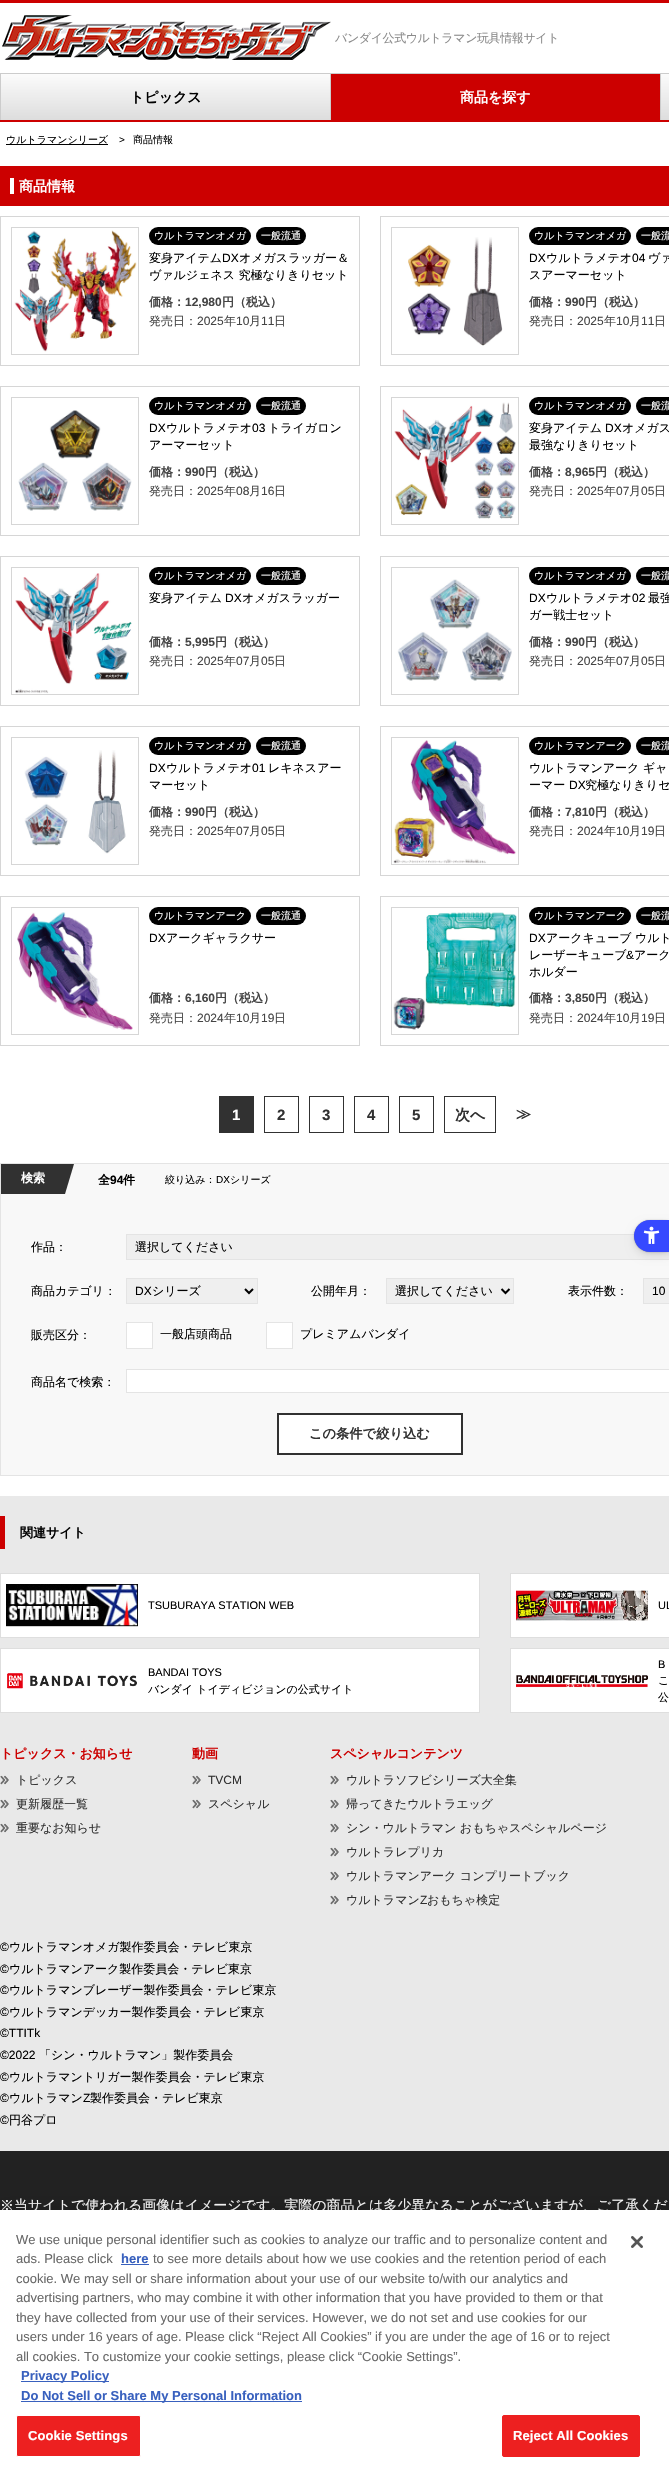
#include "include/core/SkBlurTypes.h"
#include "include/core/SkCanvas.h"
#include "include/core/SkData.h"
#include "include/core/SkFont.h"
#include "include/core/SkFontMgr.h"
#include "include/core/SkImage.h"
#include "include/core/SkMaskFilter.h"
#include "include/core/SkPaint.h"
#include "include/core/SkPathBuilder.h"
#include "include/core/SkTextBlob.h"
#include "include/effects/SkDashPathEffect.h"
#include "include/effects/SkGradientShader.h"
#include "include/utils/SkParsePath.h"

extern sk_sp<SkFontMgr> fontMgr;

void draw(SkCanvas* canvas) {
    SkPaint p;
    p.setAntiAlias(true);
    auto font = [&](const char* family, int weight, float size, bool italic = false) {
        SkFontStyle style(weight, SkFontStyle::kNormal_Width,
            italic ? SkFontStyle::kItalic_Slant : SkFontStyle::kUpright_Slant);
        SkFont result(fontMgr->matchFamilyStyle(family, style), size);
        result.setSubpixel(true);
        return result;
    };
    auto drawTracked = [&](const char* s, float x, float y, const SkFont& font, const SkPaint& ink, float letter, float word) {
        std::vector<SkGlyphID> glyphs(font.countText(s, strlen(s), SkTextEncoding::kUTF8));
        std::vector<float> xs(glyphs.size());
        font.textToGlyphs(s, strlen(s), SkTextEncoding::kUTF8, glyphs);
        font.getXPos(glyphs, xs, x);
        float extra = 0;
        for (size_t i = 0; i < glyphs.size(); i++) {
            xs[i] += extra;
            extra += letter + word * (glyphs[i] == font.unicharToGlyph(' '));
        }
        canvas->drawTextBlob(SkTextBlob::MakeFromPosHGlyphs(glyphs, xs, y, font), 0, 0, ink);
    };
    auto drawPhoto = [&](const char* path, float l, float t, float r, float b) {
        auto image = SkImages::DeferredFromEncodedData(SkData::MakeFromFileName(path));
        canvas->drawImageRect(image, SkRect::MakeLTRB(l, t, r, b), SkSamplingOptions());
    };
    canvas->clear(0xFFFFFFFF);
    p.setColor(0xFFCC0000);
    canvas->drawRect(SkRect::MakeLTRB(0, 0, 669, 3), p);
    drawPhoto("media/1.png", 2, 15, 331, 60);
    auto font1 = font("WenQuanYi Zen Hei", 500, 12);
    p.setColor(0xFF8B8B8B);
    drawTracked("バンダイ公式ウルトラマン玩具情報サイト", 335, 42, font1, p, -0.4f, 0);
    {
        const SkColor colors[] = {0xFFFCFCFC, 0xFFDDDDDD};
        const float stops[] = {0, 1};
        const SkPoint ends[] = {{495, 73}, {495, 120}};
        p.setShader(SkGradientShader::MakeLinear(ends, colors, stops, 2, SkTileMode::kClamp));
        p.setAlpha(255);
    }
    canvas->drawRect(SkRect::MakeLTRB(1, 74, 669, 120), p);
    p.setShader(nullptr);
    {
        const struct { float l, t, r, b; SkColor color; } items[] = {
            {0, 120, 669, 122, 0xFFCC0000},
            {0, 73, 669, 74, 0xFFCCCCCC},
            {0, 74, 1, 120, 0xFFCCCCCC},
        };
        for (auto [l, t, r, b, color] : items) {
            p.setColor(color);
            canvas->drawRect(SkRect::MakeLTRB(l, t, r, b), p);
        }
    }
    auto font2 = font("WenQuanYi Zen Hei", 700, 14);
    p.setColor(0xFF000000);
    canvas->drawString("トピックス", 130, 102, font2, p);
    p.setColor(0xFFCCCCCC);
    canvas->drawRect(SkRect::MakeLTRB(330, 74, 331, 120), p);
    p.setColor(0xFFCC0000);
    canvas->drawRect(SkRect::MakeLTRB(331, 74, 660, 120), p);
    p.setColor(0xFFFFFFFF);
    canvas->drawString("商品を探す", 460, 102, font2, p);
    p.setColor(0xFFCCCCCC);
    canvas->drawRect(SkRect::MakeLTRB(660, 74, 661, 120), p);
    p.setColor(0xFF000000);
    canvas->drawRect(SkRect::MakeLTRB(6, 144, 108, 145), p);
    auto font3 = font("WenQuanYi Zen Hei", 500, 10);
    canvas->drawString("ウルトラマンシリーズ", 6, 143, font3, p);
    auto font4 = font("Liberation Sans", 400, 10);
    canvas->drawString(">", 119, 143, font4, p);
    canvas->drawString("商品情報", 133, 143, font3, p);
    p.setColor(0xFFCC0000);
    canvas->drawRect(SkRect::MakeLTRB(0, 166, 669, 206), p);
    p.setColor(0xFFFFFFFF);
    canvas->drawRect(SkRect::MakeLTRB(10, 178, 14, 194), p);
    canvas->drawString("商品情報", 19, 191, font2, p);
    p.setStyle(SkPaint::kStroke_Style);
    p.setStrokeWidth(1);
    p.setColor(0xFFD6D6D6);
    canvas->drawRect(SkRect::MakeLTRB(0.5f, 216.5f, 359.5f, 365.5f), p);
    canvas->drawRect(SkRect::MakeLTRB(11.5f, 227.5f, 138.5f, 354.5f), p);
    drawPhoto("media/2.png", 14, 230, 137, 352);
    p.setStyle(SkPaint::kFill_Style);
    p.setColor(0xFF000000);
    canvas->drawRoundRect(SkRect::MakeLTRB(149, 227, 251, 245), 9, 9, p);
    p.setColor(0xFFFFFFFF);
    canvas->drawString("ウルトラマンオメガ", 154, 239, font3, p);
    p.setColor(0xFF000000);
    canvas->drawRoundRect(SkRect::MakeLTRB(256, 227, 306, 245), 9, 9, p);
    p.setColor(0xFFFFFFFF);
    canvas->drawString("一般流通", 261, 239, font3, p);
    p.setColor(0xFF000000);
    canvas->drawString("変身アイテム", 149, 262, font1, p);
    auto font5 = font("Liberation Sans", 400, 12);
    canvas->drawString("DX", 222, 262, font5, p);
    canvas->drawString("オメガスラッガー＆", 239, 262, font1, p);
    canvas->drawString("ヴァルジェネス 究極なりきりセット", 149, 279, font1, p);
    auto font6 = font("WenQuanYi Zen Hei", 700, 12);
    p.setColor(0xFF444444);
    canvas->drawString("価格：", 149, 306, font6, p);
    auto font7 = font("Liberation Sans", 700, 12);
    canvas->drawString("12,980", 185, 306, font7, p);
    canvas->drawString("円（税込）", 222, 306, font6, p);
    canvas->drawString("発売日：", 149, 325, font1, p);
    canvas->drawString("2025", 197, 325, font5, p);
    canvas->drawString("年", 224, 325, font1, p);
    canvas->drawString("10", 236, 325, font5, p);
    canvas->drawString("月", 249, 325, font1, p);
    canvas->drawString("11", 261, 325, font5, p);
    canvas->drawString("日", 274, 325, font1, p);
    p.setStyle(SkPaint::kStroke_Style);
    p.setColor(0xFFD6D6D6);
    canvas->drawRect(SkRect::MakeLTRB(380.5f, 216.5f, 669.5f, 365.5f), p);
    canvas->drawRect(SkRect::MakeLTRB(391.5f, 227.5f, 518.5f, 354.5f), p);
    drawPhoto("media/3.png", 408, 237, 503, 346);
    p.setStyle(SkPaint::kFill_Style);
    p.setColor(0xFF000000);
    canvas->drawRoundRect(SkRect::MakeLTRB(529, 227, 631, 245), 9, 9, p);
    p.setColor(0xFFFFFFFF);
    canvas->drawString("ウルトラマンオメガ", 534, 239, font3, p);
    p.setColor(0xFF000000);
    canvas->drawRoundRect(SkRect::MakeLTRB(636, 227, 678, 245), 9, 9, p);
    p.setColor(0xFFFFFFFF);
    canvas->drawString("一般流", 641, 239, font3, p);
    p.setColor(0xFF000000);
    canvas->drawString("DX", 529, 262, font5, p);
    canvas->drawString("ウルトラメテオ", 546, 262, font1, p);
    canvas->drawString("04", 632, 262, font5, p);
    canvas->drawString("ヴァ", 648, 262, font1, p);
    canvas->drawString("スアーマーセット", 529, 279, font1, p);
    p.setColor(0xFF444444);
    canvas->drawString("価格：", 529, 306, font6, p);
    canvas->drawString("990", 565, 306, font7, p);
    canvas->drawString("円（税込）", 585, 306, font6, p);
    canvas->drawString("発売日：", 529, 325, font1, p);
    canvas->drawString("2025", 577, 325, font5, p);
    canvas->drawString("年", 604, 325, font1, p);
    canvas->drawString("10", 616, 325, font5, p);
    canvas->drawString("月", 629, 325, font1, p);
    canvas->drawString("11", 641, 325, font5, p);
    canvas->drawString("日", 654, 325, font1, p);
    p.setStyle(SkPaint::kStroke_Style);
    p.setColor(0xFFD6D6D6);
    canvas->drawRect(SkRect::MakeLTRB(0.5f, 386.5f, 359.5f, 535.5f), p);
    canvas->drawRect(SkRect::MakeLTRB(11.5f, 397.5f, 138.5f, 524.5f), p);
    drawPhoto("media/4.png", 18, 410, 132, 511);
    p.setStyle(SkPaint::kFill_Style);
    p.setColor(0xFF000000);
    canvas->drawRoundRect(SkRect::MakeLTRB(149, 397, 251, 415), 9, 9, p);
    p.setColor(0xFFFFFFFF);
    canvas->drawString("ウルトラマンオメガ", 154, 409, font3, p);
    p.setColor(0xFF000000);
    canvas->drawRoundRect(SkRect::MakeLTRB(256, 397, 306, 415), 9, 9, p);
    p.setColor(0xFFFFFFFF);
    canvas->drawString("一般流通", 261, 409, font3, p);
    p.setColor(0xFF000000);
    canvas->drawString("DX", 149, 432, font5, p);
    canvas->drawString("ウルトラメテオ", 166, 432, font1, p);
    canvas->drawString("03", 252, 432, font5, p);
    canvas->drawString("トライガロン", 268, 432, font1, p);
    canvas->drawString("アーマーセット", 149, 449, font1, p);
    p.setColor(0xFF444444);
    canvas->drawString("価格：", 149, 476, font6, p);
    canvas->drawString("990", 185, 476, font7, p);
    canvas->drawString("円（税込）", 205, 476, font6, p);
    canvas->drawString("発売日：", 149, 495, font1, p);
    canvas->drawString("2025", 197, 495, font5, p);
    canvas->drawString("年", 224, 495, font1, p);
    canvas->drawString("08", 236, 495, font5, p);
    canvas->drawString("月", 249, 495, font1, p);
    canvas->drawString("16", 261, 495, font5, p);
    canvas->drawString("日", 274, 495, font1, p);
    p.setStyle(SkPaint::kStroke_Style);
    p.setColor(0xFFD6D6D6);
    canvas->drawRect(SkRect::MakeLTRB(380.5f, 386.5f, 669.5f, 535.5f), p);
    canvas->drawRect(SkRect::MakeLTRB(391.5f, 397.5f, 518.5f, 524.5f), p);
    drawPhoto("media/5.png", 394, 402, 516, 519);
    p.setStyle(SkPaint::kFill_Style);
    p.setColor(0xFF000000);
    canvas->drawRoundRect(SkRect::MakeLTRB(529, 397, 631, 415), 9, 9, p);
    p.setColor(0xFFFFFFFF);
    canvas->drawString("ウルトラマンオメガ", 534, 409, font3, p);
    p.setColor(0xFF000000);
    canvas->drawRoundRect(SkRect::MakeLTRB(636, 397, 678, 415), 9, 9, p);
    p.setColor(0xFFFFFFFF);
    canvas->drawString("一般流", 641, 409, font3, p);
    p.setColor(0xFF000000);
    canvas->drawString("変身アイテム", 529, 432, font1, p);
    canvas->drawString("DX", 605, 432, font5, p);
    canvas->drawString("オメガス", 622, 432, font1, p);
    canvas->drawString("最強なりきりセット", 529, 449, font1, p);
    p.setColor(0xFF444444);
    canvas->drawString("価格：", 529, 476, font6, p);
    canvas->drawString("8,965", 565, 476, font7, p);
    canvas->drawString("円（税込）", 595, 476, font6, p);
    canvas->drawString("発売日：", 529, 495, font1, p);
    canvas->drawString("2025", 577, 495, font5, p);
    canvas->drawString("年", 604, 495, font1, p);
    canvas->drawString("07", 616, 495, font5, p);
    canvas->drawString("月", 629, 495, font1, p);
    canvas->drawString("05", 641, 495, font5, p);
    canvas->drawString("日", 654, 495, font1, p);
    p.setStyle(SkPaint::kStroke_Style);
    p.setColor(0xFFD6D6D6);
    canvas->drawRect(SkRect::MakeLTRB(0.5f, 556.5f, 359.5f, 705.5f), p);
    canvas->drawRect(SkRect::MakeLTRB(11.5f, 567.5f, 138.5f, 694.5f), p);
    drawPhoto("media/6.png", 15, 573, 132, 694);
    p.setStyle(SkPaint::kFill_Style);
    p.setColor(0xFF000000);
    canvas->drawRoundRect(SkRect::MakeLTRB(149, 567, 251, 585), 9, 9, p);
    p.setColor(0xFFFFFFFF);
    canvas->drawString("ウルトラマンオメガ", 154, 579, font3, p);
    p.setColor(0xFF000000);
    canvas->drawRoundRect(SkRect::MakeLTRB(256, 567, 306, 585), 9, 9, p);
    p.setColor(0xFFFFFFFF);
    canvas->drawString("一般流通", 261, 579, font3, p);
    p.setColor(0xFF000000);
    canvas->drawString("変身アイテム", 149, 602, font1, p);
    canvas->drawString("DX", 225, 602, font5, p);
    canvas->drawString("オメガスラッガー", 242, 602, font1, p);
    p.setColor(0xFF444444);
    canvas->drawString("価格：", 149, 646, font6, p);
    canvas->drawString("5,995", 185, 646, font7, p);
    canvas->drawString("円（税込）", 215, 646, font6, p);
    canvas->drawString("発売日：", 149, 665, font1, p);
    canvas->drawString("2025", 197, 665, font5, p);
    canvas->drawString("年", 224, 665, font1, p);
    canvas->drawString("07", 236, 665, font5, p);
    canvas->drawString("月", 249, 665, font1, p);
    canvas->drawString("05", 261, 665, font5, p);
    canvas->drawString("日", 274, 665, font1, p);
    p.setStyle(SkPaint::kStroke_Style);
    p.setColor(0xFFD6D6D6);
    canvas->drawRect(SkRect::MakeLTRB(380.5f, 556.5f, 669.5f, 705.5f), p);
    canvas->drawRect(SkRect::MakeLTRB(391.5f, 567.5f, 518.5f, 694.5f), p);
    drawPhoto("media/7.png", 397, 579, 512, 681);
    p.setStyle(SkPaint::kFill_Style);
    p.setColor(0xFF000000);
    canvas->drawRoundRect(SkRect::MakeLTRB(529, 567, 631, 585), 9, 9, p);
    p.setColor(0xFFFFFFFF);
    canvas->drawString("ウルトラマンオメガ", 534, 579, font3, p);
    p.setColor(0xFF000000);
    canvas->drawRoundRect(SkRect::MakeLTRB(636, 567, 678, 585), 9, 9, p);
    p.setColor(0xFFFFFFFF);
    canvas->drawString("一般流", 641, 579, font3, p);
    p.setColor(0xFF000000);
    canvas->drawString("DX", 529, 602, font5, p);
    canvas->drawString("ウルトラメテオ", 546, 602, font1, p);
    canvas->drawString("02", 632, 602, font5, p);
    canvas->drawString("最強", 648, 602, font1, p);
    canvas->drawString("ガー戦士セット", 529, 619, font1, p);
    p.setColor(0xFF444444);
    canvas->drawString("価格：", 529, 646, font6, p);
    canvas->drawString("990", 565, 646, font7, p);
    canvas->drawString("円（税込）", 585, 646, font6, p);
    canvas->drawString("発売日：", 529, 665, font1, p);
    canvas->drawString("2025", 577, 665, font5, p);
    canvas->drawString("年", 604, 665, font1, p);
    canvas->drawString("07", 616, 665, font5, p);
    canvas->drawString("月", 629, 665, font1, p);
    canvas->drawString("05", 641, 665, font5, p);
    canvas->drawString("日", 654, 665, font1, p);
    p.setStyle(SkPaint::kStroke_Style);
    p.setColor(0xFFD6D6D6);
    canvas->drawRect(SkRect::MakeLTRB(0.5f, 726.5f, 359.5f, 875.5f), p);
    canvas->drawRect(SkRect::MakeLTRB(11.5f, 737.5f, 138.5f, 864.5f), p);
    drawPhoto("media/8.png", 24, 750, 126, 854);
    p.setStyle(SkPaint::kFill_Style);
    p.setColor(0xFF000000);
    canvas->drawRoundRect(SkRect::MakeLTRB(149, 737, 251, 755), 9, 9, p);
    p.setColor(0xFFFFFFFF);
    canvas->drawString("ウルトラマンオメガ", 154, 749, font3, p);
    p.setColor(0xFF000000);
    canvas->drawRoundRect(SkRect::MakeLTRB(256, 737, 306, 755), 9, 9, p);
    p.setColor(0xFFFFFFFF);
    canvas->drawString("一般流通", 261, 749, font3, p);
    p.setColor(0xFF000000);
    canvas->drawString("DX", 149, 772, font5, p);
    canvas->drawString("ウルトラメテオ", 166, 772, font1, p);
    canvas->drawString("01", 252, 772, font5, p);
    canvas->drawString("レキネスアー", 268, 772, font1, p);
    canvas->drawString("マーセット", 149, 789, font1, p);
    p.setColor(0xFF444444);
    canvas->drawString("価格：", 149, 816, font6, p);
    canvas->drawString("990", 185, 816, font7, p);
    canvas->drawString("円（税込）", 205, 816, font6, p);
    canvas->drawString("発売日：", 149, 835, font1, p);
    canvas->drawString("2025", 197, 835, font5, p);
    canvas->drawString("年", 224, 835, font1, p);
    canvas->drawString("07", 236, 835, font5, p);
    canvas->drawString("月", 249, 835, font1, p);
    canvas->drawString("05", 261, 835, font5, p);
    canvas->drawString("日", 274, 835, font1, p);
    p.setStyle(SkPaint::kStroke_Style);
    p.setColor(0xFFD6D6D6);
    canvas->drawRect(SkRect::MakeLTRB(380.5f, 726.5f, 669.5f, 875.5f), p);
    canvas->drawRect(SkRect::MakeLTRB(391.5f, 737.5f, 518.5f, 864.5f), p);
    drawPhoto("media/9.png", 393, 740, 516, 864);
    p.setStyle(SkPaint::kFill_Style);
    p.setColor(0xFF000000);
    canvas->drawRoundRect(SkRect::MakeLTRB(529, 737, 631, 755), 9, 9, p);
    p.setColor(0xFFFFFFFF);
    canvas->drawString("ウルトラマンアーク", 534, 749, font3, p);
    p.setColor(0xFF000000);
    canvas->drawRoundRect(SkRect::MakeLTRB(636, 737, 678, 755), 9, 9, p);
    p.setColor(0xFFFFFFFF);
    canvas->drawString("一般流", 641, 749, font3, p);
    p.setColor(0xFF000000);
    canvas->drawString("ウルトラマンアーク ギャ", 529, 772, font1, p);
    canvas->drawString("ーマー", 529, 789, font1, p);
    canvas->drawString("DX", 569, 789, font5, p);
    canvas->drawString("究極なりきりセ", 585, 789, font1, p);
    p.setColor(0xFF444444);
    canvas->drawString("価格：", 529, 816, font6, p);
    canvas->drawString("7,810", 565, 816, font7, p);
    canvas->drawString("円（税込）", 595, 816, font6, p);
    canvas->drawString("発売日：", 529, 835, font1, p);
    canvas->drawString("2024", 577, 835, font5, p);
    canvas->drawString("年", 604, 835, font1, p);
    canvas->drawString("10", 616, 835, font5, p);
    canvas->drawString("月", 629, 835, font1, p);
    canvas->drawString("19", 641, 835, font5, p);
    canvas->drawString("日", 654, 835, font1, p);
    p.setStyle(SkPaint::kStroke_Style);
    p.setColor(0xFFD6D6D6);
    canvas->drawRect(SkRect::MakeLTRB(0.5f, 896.5f, 359.5f, 1045.5f), p);
    canvas->drawRect(SkRect::MakeLTRB(11.5f, 907.5f, 138.5f, 1034.5f), p);
    drawPhoto("media/10.png", 17, 912, 133, 1030);
    p.setStyle(SkPaint::kFill_Style);
    p.setColor(0xFF000000);
    canvas->drawRoundRect(SkRect::MakeLTRB(149, 907, 251, 925), 9, 9, p);
    p.setColor(0xFFFFFFFF);
    canvas->drawString("ウルトラマンアーク", 154, 919, font3, p);
    p.setColor(0xFF000000);
    canvas->drawRoundRect(SkRect::MakeLTRB(256, 907, 306, 925), 9, 9, p);
    p.setColor(0xFFFFFFFF);
    canvas->drawString("一般流通", 261, 919, font3, p);
    p.setColor(0xFF000000);
    canvas->drawString("DX", 149, 942, font5, p);
    canvas->drawString("アークギャラクサー", 166, 942, font1, p);
    p.setColor(0xFF444444);
    canvas->drawString("価格：", 149, 1002, font6, p);
    canvas->drawString("6,160", 185, 1002, font7, p);
    canvas->drawString("円（税込）", 215, 1002, font6, p);
    canvas->drawString("発売日：", 149, 1022, font1, p);
    canvas->drawString("2024", 197, 1022, font5, p);
    canvas->drawString("年", 224, 1022, font1, p);
    canvas->drawString("10", 236, 1022, font5, p);
    canvas->drawString("月", 249, 1022, font1, p);
    canvas->drawString("19", 261, 1022, font5, p);
    canvas->drawString("日", 274, 1022, font1, p);
    p.setStyle(SkPaint::kStroke_Style);
    p.setColor(0xFFD6D6D6);
    canvas->drawRect(SkRect::MakeLTRB(380.5f, 896.5f, 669.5f, 1045.5f), p);
    canvas->drawRect(SkRect::MakeLTRB(391.5f, 907.5f, 518.5f, 1034.5f), p);
    drawPhoto("media/11.png", 393, 912, 517, 1030);
    p.setStyle(SkPaint::kFill_Style);
    p.setColor(0xFF000000);
    canvas->drawRoundRect(SkRect::MakeLTRB(529, 907, 631, 925), 9, 9, p);
    p.setColor(0xFFFFFFFF);
    canvas->drawString("ウルトラマンアーク", 534, 919, font3, p);
    p.setColor(0xFF000000);
    canvas->drawRoundRect(SkRect::MakeLTRB(636, 907, 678, 925), 9, 9, p);
    p.setColor(0xFFFFFFFF);
    canvas->drawString("一般流", 641, 919, font3, p);
    p.setColor(0xFF000000);
    canvas->drawString("DX", 529, 942, font5, p);
    canvas->drawString("アークキューブ ウルト", 546, 942, font1, p);
    canvas->drawString("レーザーキューブ", 529, 959, font1, p);
    canvas->drawString("&", 626, 959, font5, p);
    canvas->drawString("アーク", 634, 959, font1, p);
    canvas->drawString("ホルダー", 529, 976, font1, p);
    p.setColor(0xFF444444);
    canvas->drawString("価格：", 529, 1002, font6, p);
    canvas->drawString("3,850", 565, 1002, font7, p);
    canvas->drawString("円（税込）", 595, 1002, font6, p);
    canvas->drawString("発売日：", 529, 1022, font1, p);
    canvas->drawString("2024", 577, 1022, font5, p);
    canvas->drawString("年", 604, 1022, font1, p);
    canvas->drawString("10", 616, 1022, font5, p);
    canvas->drawString("月", 629, 1022, font1, p);
    canvas->drawString("19", 641, 1022, font5, p);
    canvas->drawString("日", 654, 1022, font1, p);
    p.setColor(0xFF313131);
    canvas->drawRect(SkRect::MakeLTRB(219, 1096, 254, 1133), p);
    auto font8 = font("Liberation Sans", 700, 15);
    p.setColor(0xFFFFFFFF);
    canvas->drawString("1", 232, 1120, font8, p);
    p.setStyle(SkPaint::kStroke_Style);
    p.setColor(0xFF313131);
    canvas->drawRect(SkRect::MakeLTRB(264.5f, 1096.5f, 298.5f, 1132.5f), p);
    p.setStyle(SkPaint::kFill_Style);
    canvas->drawString("2", 277, 1120, font8, p);
    p.setStyle(SkPaint::kStroke_Style);
    canvas->drawRect(SkRect::MakeLTRB(309.5f, 1096.5f, 343.5f, 1132.5f), p);
    p.setStyle(SkPaint::kFill_Style);
    canvas->drawString("3", 322, 1120, font8, p);
    p.setStyle(SkPaint::kStroke_Style);
    canvas->drawRect(SkRect::MakeLTRB(354.5f, 1096.5f, 388.5f, 1132.5f), p);
    p.setStyle(SkPaint::kFill_Style);
    canvas->drawString("4", 367, 1120, font8, p);
    p.setStyle(SkPaint::kStroke_Style);
    canvas->drawRect(SkRect::MakeLTRB(399.5f, 1096.5f, 433.5f, 1132.5f), p);
    p.setStyle(SkPaint::kFill_Style);
    canvas->drawString("5", 412, 1120, font8, p);
    p.setStyle(SkPaint::kStroke_Style);
    canvas->drawRect(SkRect::MakeLTRB(444.5f, 1096.5f, 495.5f, 1132.5f), p);
    auto font9 = font("WenQuanYi Zen Hei", 700, 15);
    p.setStyle(SkPaint::kFill_Style);
    canvas->drawString("次へ", 455, 1120, font9, p);
    canvas->drawString("≫", 516, 1119, font9, p);
    p.setColor(0xFFF8F8F8);
    canvas->drawRect(SkRect::MakeLTRB(0.5f, 1163.5f, 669.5f, 1475.5f), p);
    p.setStyle(SkPaint::kStroke_Style);
    p.setColor(0xFFE4E4E4);
    canvas->drawRect(SkRect::MakeLTRB(0.5f, 1163.5f, 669.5f, 1475.5f), p);
    p.setStyle(SkPaint::kFill_Style);
    p.setColor(0xFF313131);
    canvas->drawRect(SkRect::MakeLTRB(1, 1164, 65, 1194), p);
    p.setColor(0xFFFFFFFF);
    canvas->drawString("検索", 21, 1182, font6, p);
    p.setColor(0xFF313131);
    canvas->drawPath(SkPathBuilder().moveTo(56, 1164).lineTo(74, 1164).lineTo(65, 1194).close().detach(), p);
    p.setColor(0xFF000000);
    canvas->drawString("全", 98, 1184, font6, p);
    canvas->drawString("94", 110, 1184, font7, p);
    canvas->drawString("件", 123, 1184, font6, p);
    canvas->drawString("絞り込み：", 165, 1183, font3, p);
    canvas->drawString("DX", 216, 1183, font4, p);
    canvas->drawString("シリーズ", 230, 1183, font3, p);
    canvas->drawString("作品：", 31, 1251, font1, p);
    p.setColor(0xFFEFEFEF);
    canvas->drawRect(SkRect::MakeLTRB(126.5f, 1234.5f, 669.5f, 1259.5f), p);
    p.setStyle(SkPaint::kStroke_Style);
    p.setColor(0xFFE4E4E4);
    canvas->drawRect(SkRect::MakeLTRB(126.5f, 1234.5f, 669.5f, 1259.5f), p);
    p.setStyle(SkPaint::kFill_Style);
    p.setColor(0xFF000000);
    canvas->drawString("選択してください", 135, 1251, font1, p);
    canvas->drawString("商品カテゴリ：", 31, 1295, font1, p);
    p.setColor(0xFFEFEFEF);
    canvas->drawRect(SkRect::MakeLTRB(126.5f, 1278.5f, 257.5f, 1303.5f), p);
    p.setStyle(SkPaint::kStroke_Style);
    p.setColor(0xFFE4E4E4);
    canvas->drawRect(SkRect::MakeLTRB(126.5f, 1278.5f, 257.5f, 1303.5f), p);
    p.setStrokeWidth(2);
    p.setColor(0xFF000000);
    canvas->drawPath(SkPathBuilder().moveTo(245, 1289).lineTo(249, 1293).lineTo(253, 1289).detach(), p);
    p.setStyle(SkPaint::kFill_Style);
    canvas->drawString("DX", 135, 1295, font5, p);
    canvas->drawString("シリーズ", 152, 1295, font1, p);
    canvas->drawString("公開年月：", 311, 1295, font1, p);
    p.setColor(0xFFEFEFEF);
    canvas->drawRect(SkRect::MakeLTRB(386.5f, 1278.5f, 513.5f, 1303.5f), p);
    p.setStyle(SkPaint::kStroke_Style);
    p.setStrokeWidth(1);
    p.setColor(0xFFE4E4E4);
    canvas->drawRect(SkRect::MakeLTRB(386.5f, 1278.5f, 513.5f, 1303.5f), p);
    p.setStrokeWidth(2);
    p.setColor(0xFF000000);
    canvas->drawPath(SkPathBuilder().moveTo(501.5f, 1289).lineTo(505.5f, 1293).lineTo(509.5f, 1289).detach(), p);
    p.setStyle(SkPaint::kFill_Style);
    canvas->drawString("選択してください", 395, 1295, font1, p);
    canvas->drawString("表示件数：", 568, 1295, font1, p);
    p.setColor(0xFFEFEFEF);
    canvas->drawRect(SkRect::MakeLTRB(643.5f, 1278.5f, 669.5f, 1303.5f), p);
    p.setStyle(SkPaint::kStroke_Style);
    p.setStrokeWidth(1);
    p.setColor(0xFFE4E4E4);
    canvas->drawRect(SkRect::MakeLTRB(643.5f, 1278.5f, 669.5f, 1303.5f), p);
    p.setStyle(SkPaint::kFill_Style);
    p.setColor(0xFF000000);
    canvas->drawString("10", 652, 1295, font5, p);
    canvas->drawString("販売区分：", 31, 1339, font1, p);
    p.setColor(0xFFFFFFFF);
    canvas->drawRect(SkRect::MakeLTRB(126.5f, 1322.5f, 152.5f, 1348.5f), p);
    p.setStyle(SkPaint::kStroke_Style);
    p.setColor(0xFFE4E4E4);
    canvas->drawRect(SkRect::MakeLTRB(126.5f, 1322.5f, 152.5f, 1348.5f), p);
    p.setStyle(SkPaint::kFill_Style);
    p.setColor(0xFF000000);
    canvas->drawString("一般店頭商品", 160, 1338, font1, p);
    p.setColor(0xFFFFFFFF);
    canvas->drawRect(SkRect::MakeLTRB(266.5f, 1322.5f, 292.5f, 1348.5f), p);
    p.setStyle(SkPaint::kStroke_Style);
    p.setColor(0xFFE4E4E4);
    canvas->drawRect(SkRect::MakeLTRB(266.5f, 1322.5f, 292.5f, 1348.5f), p);
    p.setStyle(SkPaint::kFill_Style);
    p.setColor(0xFF000000);
    canvas->drawString("プレミアムバンダイ", 300, 1338, font1, p);
    canvas->drawString("商品名で検索：", 31, 1386, font1, p);
    p.setColor(0xFFFFFFFF);
    canvas->drawRect(SkRect::MakeLTRB(126.5f, 1369.5f, 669.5f, 1392.5f), p);
    p.setStyle(SkPaint::kStroke_Style);
    p.setColor(0xFFE4E4E4);
    canvas->drawRect(SkRect::MakeLTRB(126.5f, 1369.5f, 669.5f, 1392.5f), p);
    p.setStyle(SkPaint::kFill_Style);
    p.setColor(0xFFFFFFFF);
    canvas->drawRect(SkRect::MakeLTRB(278, 1414, 462, 1454), p);
    p.setStyle(SkPaint::kStroke_Style);
    p.setStrokeWidth(2);
    p.setColor(0xFF313131);
    canvas->drawRect(SkRect::MakeLTRB(278, 1414, 462, 1454), p);
    auto font10 = font("WenQuanYi Zen Hei", 700, 13.25f);
    p.setStyle(SkPaint::kFill_Style);
    canvas->drawString("この条件で絞り込む", 309, 1438, font10, p);
    p.setColor(0x17000000);
    p.setMaskFilter(SkMaskFilter::MakeBlur(kNormal_SkBlurStyle, 4));
    canvas->drawRoundRect(SkRect::MakeLTRB(634, 1224, 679, 1256), 16, 16, p);
    p.setMaskFilter(nullptr);
    p.setMaskFilter(SkMaskFilter::MakeBlur(kNormal_SkBlurStyle, 1.5f));
    canvas->drawRoundRect(SkRect::MakeLTRB(634, 1221, 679, 1253), 16, 16, p);
    p.setMaskFilter(nullptr);
    p.setColor(0x66000000);
    p.setMaskFilter(SkMaskFilter::MakeBlur(kNormal_SkBlurStyle, 0.5f));
    canvas->drawRoundRect(SkRect::MakeLTRB(634, 1220, 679, 1252), 16, 16, p);
    p.setMaskFilter(nullptr);
    p.setColor(0xFF3649FF);
    canvas->drawPath(SkPathBuilder().moveTo(650, 1220).lineTo(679, 1220).lineTo(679, 1252).lineTo(650, 1252).cubicTo(641, 1252, 634, 1245, 634, 1236).cubicTo(634, 1227, 641, 1220, 650, 1220).close().detach(), p);
    drawPhoto("media/12.png", 643, 1226, 660, 1244);
    p.setColor(0xFFE9E9E9);
    canvas->drawRect(SkRect::MakeLTRB(0, 1496, 669, 2151), p);
    p.setColor(0xFFCC0000);
    canvas->drawRect(SkRect::MakeLTRB(0, 1516, 5, 1549), p);
    auto font11 = font("WenQuanYi Zen Hei", 700, 13);
    p.setColor(0xFF000000);
    canvas->drawString("関連サイト", 20, 1537, font11, p);
    p.setColor(0xFFFFFFFF);
    canvas->drawRect(SkRect::MakeLTRB(0.5f, 1573.5f, 479.5f, 1637.5f), p);
    p.setStyle(SkPaint::kStroke_Style);
    p.setStrokeWidth(1);
    p.setColor(0xFFDEDEDE);
    canvas->drawRect(SkRect::MakeLTRB(0.5f, 1573.5f, 479.5f, 1637.5f), p);
    drawPhoto("media/13.png", 6, 1584, 138, 1627);
    auto font12 = font("Liberation Sans", 400, 11);
    p.setStyle(SkPaint::kFill_Style);
    p.setColor(0xFF000000);
    canvas->drawString("TSUBURAYA STATION WEB", 148, 1609, font12, p);
    p.setColor(0xFFFFFFFF);
    canvas->drawRect(SkRect::MakeLTRB(510.5f, 1573.5f, 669.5f, 1637.5f), p);
    p.setStyle(SkPaint::kStroke_Style);
    p.setColor(0xFFDEDEDE);
    canvas->drawRect(SkRect::MakeLTRB(510.5f, 1573.5f, 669.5f, 1637.5f), p);
    drawPhoto("media/14.png", 516, 1590, 648, 1621);
    p.setStyle(SkPaint::kFill_Style);
    p.setColor(0xFF000000);
    canvas->drawString("UL", 658, 1609, font12, p);
    p.setColor(0xFFFFFFFF);
    canvas->drawRect(SkRect::MakeLTRB(0.5f, 1648.5f, 479.5f, 1712.5f), p);
    p.setStyle(SkPaint::kStroke_Style);
    p.setColor(0xFFDEDEDE);
    canvas->drawRect(SkRect::MakeLTRB(0.5f, 1648.5f, 479.5f, 1712.5f), p);
    drawPhoto("media/15.png", 7, 1673, 137, 1689);
    p.setStyle(SkPaint::kFill_Style);
    p.setColor(0xFF000000);
    canvas->drawString("BANDAI TOYS", 148, 1676, font12, p);
    auto font13 = font("WenQuanYi Zen Hei", 500, 11);
    canvas->drawString("バンダイ トイディビジョンの公式サイト", 148, 1693, font13, p);
    p.setColor(0xFFFFFFFF);
    canvas->drawRect(SkRect::MakeLTRB(510.5f, 1648.5f, 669.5f, 1712.5f), p);
    p.setStyle(SkPaint::kStroke_Style);
    p.setColor(0xFFDEDEDE);
    canvas->drawRect(SkRect::MakeLTRB(510.5f, 1648.5f, 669.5f, 1712.5f), p);
    drawPhoto("media/16.png", 516, 1675, 648, 1688);
    p.setStyle(SkPaint::kFill_Style);
    p.setColor(0xFF000000);
    canvas->drawString("B", 658, 1668, font12, p);
    canvas->drawString("こ", 658, 1684, font13, p);
    canvas->drawString("公", 658, 1701, font13, p);
    p.setColor(0xFFCC0000);
    canvas->drawString("トピックス・お知らせ", 0, 1758, font11, p);
    drawPhoto("media/17.png", 0, 1775, 9, 1785);
    p.setColor(0xFF313131);
    canvas->drawString("トピックス", 16, 1784, font1, p);
    drawPhoto("media/17.png", 0, 1799, 9, 1809);
    canvas->drawString("更新履歴一覧", 16, 1808, font1, p);
    drawPhoto("media/17.png", 0, 1823, 9, 1833);
    canvas->drawString("重要なお知らせ", 16, 1832, font1, p);
    p.setColor(0xFFCC0000);
    canvas->drawString("動画", 192, 1758, font11, p);
    drawPhoto("media/17.png", 192, 1775, 201, 1785);
    p.setColor(0xFF313131);
    canvas->drawString("TVCM", 208, 1784, font5, p);
    drawPhoto("media/17.png", 192, 1799, 201, 1809);
    canvas->drawString("スペシャル", 208, 1808, font1, p);
    p.setColor(0xFFCC0000);
    canvas->drawString("スペシャルコンテンツ", 330, 1758, font11, p);
    drawPhoto("media/17.png", 330, 1775, 339, 1785);
    p.setColor(0xFF313131);
    canvas->drawString("ウルトラソフビシリーズ大全集", 346, 1784, font1, p);
    drawPhoto("media/17.png", 330, 1799, 339, 1809);
    canvas->drawString("帰ってきたウルトラエッグ", 346, 1808, font1, p);
    drawPhoto("media/17.png", 330, 1823, 339, 1833);
    canvas->drawString("シン・ウルトラマン おもちゃスペシャルページ", 346, 1832, font1, p);
    drawPhoto("media/17.png", 330, 1847, 339, 1857);
    canvas->drawString("ウルトラレプリカ", 346, 1856, font1, p);
    drawPhoto("media/17.png", 330, 1871, 339, 1881);
    canvas->drawString("ウルトラマンアーク コンプリートブック", 346, 1880, font1, p);
    drawPhoto("media/17.png", 330, 1895, 339, 1905);
    canvas->drawString("ウルトラマン", 346, 1904, font1, p);
    canvas->drawString("Z", 420, 1904, font5, p);
    canvas->drawString("おもちゃ検定", 427, 1904, font1, p);
    p.setColor(0xFF000000);
    canvas->drawString("©", 0, 1951, font5, p);
    canvas->drawString("ウルトラマンオメガ製作委員会・テレビ東京", 9, 1951, font1, p);
    canvas->drawString("©", 0, 1973, font5, p);
    canvas->drawString("ウルトラマンアーク製作委員会・テレビ東京", 9, 1973, font1, p);
    canvas->drawString("©", 0, 1994, font5, p);
    canvas->drawString("ウルトラマンブレーザー製作委員会・テレビ東京", 9, 1994, font1, p);
    canvas->drawString("©", 0, 2016, font5, p);
    canvas->drawString("ウルトラマンデッカー製作委員会・テレビ東京", 9, 2016, font1, p);
    canvas->drawString("©TTITk", 0, 2037, font5, p);
    canvas->drawString("©2022", 0, 2059, font5, p);
    canvas->drawString("「シン・ウルトラマン」製作委員会", 39, 2059, font1, p);
    canvas->drawString("©", 0, 2081, font5, p);
    canvas->drawString("ウルトラマントリガー製作委員会・テレビ東京", 9, 2081, font1, p);
    canvas->drawString("©", 0, 2102, font5, p);
    canvas->drawString("ウルトラマン", 9, 2102, font1, p);
    canvas->drawString("Z", 83, 2102, font5, p);
    canvas->drawString("製作委員会・テレビ東京", 90, 2102, font1, p);
    canvas->drawString("©", 0, 2124, font5, p);
    canvas->drawString("円谷プロ", 9, 2124, font1, p);
    p.setColor(0xFF222222);
    canvas->drawRect(SkRect::MakeLTRB(0, 2151, 669, 2210), p);
    auto font14 = font("WenQuanYi Zen Hei", 500, 14);
    p.setColor(0xFFFFFFFF);
    canvas->drawString("※当サイトで使われる画像はイメージです。実際の商品とは多少異なることがございますが、ご了承くだ", 0, 2210, font14, p);
    p.setColor(0x33000000);
    p.setMaskFilter(SkMaskFilter::MakeBlur(kNormal_SkBlurStyle, 9));
    canvas->drawRect(SkRect::MakeLTRB(0, 2210, 669, 2471), p);
    p.setMaskFilter(nullptr);
    p.setColor(0xFFFFFFFF);
    canvas->drawRect(SkRect::MakeLTRB(0, 2210, 669, 2471), p);
    auto font15 = font("Liberation Sans", 400, 13);
    p.setColor(0xFF696969);
    canvas->drawString("We use unique personal identifier such as cookies to analyze our traffic and to personalize content and", 16, 2244, font15, p);
    canvas->drawString("ads. Please click", 16, 2263, font15, p);
    auto font16 = font("Liberation Sans", 700, 13);
    p.setColor(0xFF3860BE);
    canvas->drawString("here", 121, 2263, font16, p);
    canvas->drawRect(SkRect::MakeLTRB(121, 2264, 149, 2265), p);
    p.setColor(0xFF696969);
    {
        const struct { const char* s; float x, y; } items[] = {
            {"to see more details about how we use cookies and the retention period of each", 153, 2263},
            {"cookie. We may sell or share information about your use of our website to/with our analytics and", 16, 2283},
            {"advertising partners, who may combine it with other information that you have provided to them or that", 16, 2302},
            {"they have collected from your use of their services. However, we do not set and use cookies for our", 16, 2322},
            {"users under 16 years of age. Please click “Reject All Cookies” if you are under the age of 16 or to reject", 16, 2341},
            {"all cookies. To customize your cookie settings, please click “Cookie Settings”.", 16, 2361},
        };
        for (auto [s, x, y] : items) {
            canvas->drawString(s, x, y, font15, p);
        }
    }
    p.setColor(0xFF3860BE);
    canvas->drawRect(SkRect::MakeLTRB(21, 2381, 109, 2382), p);
    canvas->drawString("Privacy Policy", 21, 2380, font16, p);
    canvas->drawRect(SkRect::MakeLTRB(21, 2401, 302, 2402), p);
    canvas->drawString("Do Not Sell or Share My Personal Information", 21, 2400, font16, p);
    p.setColor(0xFFED2020);
    canvas->drawRoundRect(SkRect::MakeLTRB(16.5f, 2415.5f, 140.5f, 2456.5f), 1.5f, 1.5f, p);
    p.setStyle(SkPaint::kStroke_Style);
    p.setColor(0xFFFFFFFF);
    canvas->drawRoundRect(SkRect::MakeLTRB(16.5f, 2415.5f, 140.5f, 2456.5f), 1.5f, 1.5f, p);
    p.setStyle(SkPaint::kFill_Style);
    drawTracked("Cookie Settings", 28, 2440, font16, p, 0.1f, 0);
    p.setColor(0xFFED2020);
    canvas->drawRoundRect(SkRect::MakeLTRB(502.5f, 2415.5f, 639.5f, 2456.5f), 1.5f, 1.5f, p);
    p.setStyle(SkPaint::kStroke_Style);
    canvas->drawRoundRect(SkRect::MakeLTRB(502.5f, 2415.5f, 639.5f, 2456.5f), 1.5f, 1.5f, p);
    p.setStyle(SkPaint::kFill_Style);
    p.setColor(0xFFFFFFFF);
    drawTracked("Reject All Cookies", 513, 2440, font16, p, 0.1f, 0);
    drawPhoto("media/18.png", 631, 2236, 643, 2248);
}
